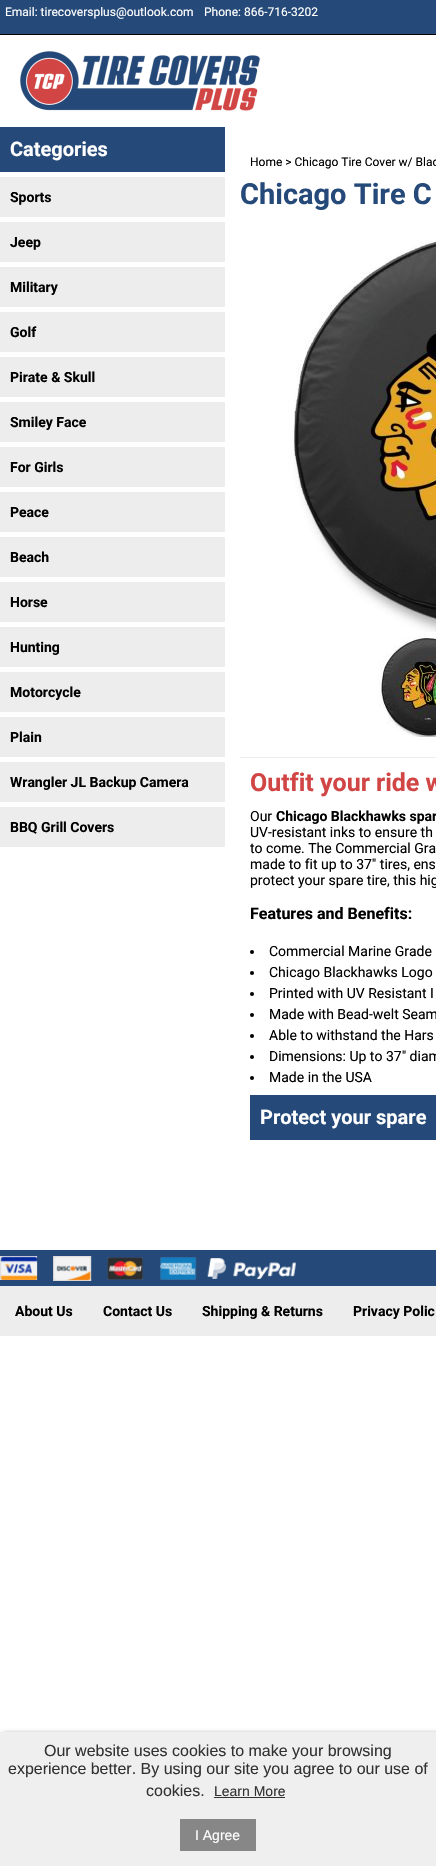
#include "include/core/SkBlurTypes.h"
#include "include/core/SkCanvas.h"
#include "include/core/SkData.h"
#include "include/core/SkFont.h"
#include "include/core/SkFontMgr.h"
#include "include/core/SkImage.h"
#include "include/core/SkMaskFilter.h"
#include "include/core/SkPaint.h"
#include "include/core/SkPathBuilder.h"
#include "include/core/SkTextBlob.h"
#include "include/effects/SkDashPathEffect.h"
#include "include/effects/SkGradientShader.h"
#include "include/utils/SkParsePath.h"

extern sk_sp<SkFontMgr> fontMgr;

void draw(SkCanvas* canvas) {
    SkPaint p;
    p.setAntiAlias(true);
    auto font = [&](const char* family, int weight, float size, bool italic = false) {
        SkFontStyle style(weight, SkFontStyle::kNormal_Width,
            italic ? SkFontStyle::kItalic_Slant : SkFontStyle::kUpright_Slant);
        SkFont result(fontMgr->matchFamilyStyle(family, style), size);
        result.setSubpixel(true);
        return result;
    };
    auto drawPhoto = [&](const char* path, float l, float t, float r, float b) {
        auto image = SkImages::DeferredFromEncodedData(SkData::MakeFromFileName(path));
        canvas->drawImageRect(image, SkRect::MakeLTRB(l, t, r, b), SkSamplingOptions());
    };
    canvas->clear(0xFFFFFFFF);
    p.setColor(0xFF254978);
    canvas->drawRect(SkRect::MakeLTRB(0, 0, 436, 34), p);
    auto font1 = font("Roboto", 400, 12);
    p.setColor(0xFFFFFFFF);
    canvas->drawString("Email: tirecoversplus@outlook.com", 5, 16, font1, p);
    canvas->drawString("Phone: 866-716-3202", 204, 16, font1, p);
    p.setColor(0xFF000000);
    canvas->drawRect(SkRect::MakeLTRB(0, 34, 436, 35), p);
    drawPhoto("media/1.png", 20, 51, 260, 111);
    p.setColor(0xFF254978);
    canvas->drawRect(SkRect::MakeLTRB(0, 127, 225, 172), p);
    auto font2 = font("Roboto", 700, 20);
    p.setColor(0xFFFFFFFF);
    canvas->drawString("Categories", 10, 156, font2, p);
    p.setColor(0xFFEDEDED);
    canvas->drawRect(SkRect::MakeLTRB(0, 177, 225, 217), p);
    auto font3 = font("Roboto", 700, 14);
    p.setColor(0xFF000000);
    canvas->drawString("Sports", 10, 202, font3, p);
    p.setColor(0xFFEDEDED);
    canvas->drawRect(SkRect::MakeLTRB(0, 222, 225, 262), p);
    p.setColor(0xFF000000);
    canvas->drawString("Jeep", 10, 247, font3, p);
    p.setColor(0xFFEDEDED);
    canvas->drawRect(SkRect::MakeLTRB(0, 267, 225, 307), p);
    p.setColor(0xFF000000);
    canvas->drawString("Military", 10, 292, font3, p);
    p.setColor(0xFFEDEDED);
    canvas->drawRect(SkRect::MakeLTRB(0, 312, 225, 352), p);
    p.setColor(0xFF000000);
    canvas->drawString("Golf", 10, 337, font3, p);
    p.setColor(0xFFEDEDED);
    canvas->drawRect(SkRect::MakeLTRB(0, 357, 225, 397), p);
    p.setColor(0xFF000000);
    canvas->drawString("Pirate & Skull", 10, 382, font3, p);
    p.setColor(0xFFEDEDED);
    canvas->drawRect(SkRect::MakeLTRB(0, 402, 225, 442), p);
    p.setColor(0xFF000000);
    canvas->drawString("Smiley Face", 10, 427, font3, p);
    p.setColor(0xFFEDEDED);
    canvas->drawRect(SkRect::MakeLTRB(0, 447, 225, 487), p);
    p.setColor(0xFF000000);
    canvas->drawString("For Girls", 10, 472, font3, p);
    p.setColor(0xFFEDEDED);
    canvas->drawRect(SkRect::MakeLTRB(0, 492, 225, 532), p);
    p.setColor(0xFF000000);
    canvas->drawString("Peace", 10, 517, font3, p);
    p.setColor(0xFFEDEDED);
    canvas->drawRect(SkRect::MakeLTRB(0, 537, 225, 577), p);
    p.setColor(0xFF000000);
    canvas->drawString("Beach", 10, 562, font3, p);
    p.setColor(0xFFEDEDED);
    canvas->drawRect(SkRect::MakeLTRB(0, 582, 225, 622), p);
    p.setColor(0xFF000000);
    canvas->drawString("Horse", 10, 607, font3, p);
    p.setColor(0xFFEDEDED);
    canvas->drawRect(SkRect::MakeLTRB(0, 627, 225, 667), p);
    p.setColor(0xFF000000);
    canvas->drawString("Hunting", 10, 652, font3, p);
    p.setColor(0xFFEDEDED);
    canvas->drawRect(SkRect::MakeLTRB(0, 672, 225, 712), p);
    p.setColor(0xFF000000);
    canvas->drawString("Motorcycle", 10, 697, font3, p);
    p.setColor(0xFFEDEDED);
    canvas->drawRect(SkRect::MakeLTRB(0, 717, 225, 757), p);
    p.setColor(0xFF000000);
    canvas->drawString("Plain", 10, 742, font3, p);
    p.setColor(0xFFEDEDED);
    canvas->drawRect(SkRect::MakeLTRB(0, 762, 225, 802), p);
    p.setColor(0xFF000000);
    canvas->drawString("Wrangler JL Backup Camera", 10, 787, font3, p);
    p.setColor(0xFFEDEDED);
    canvas->drawRect(SkRect::MakeLTRB(0, 807, 225, 847), p);
    p.setColor(0xFF000000);
    canvas->drawString("BBQ Grill Covers", 10, 832, font3, p);
    canvas->drawString("Home > Chicago Tire Cover w/ Blac", 250, 166, font1, p);
    auto font4 = font("Roboto", 700, 29);
    p.setColor(0xFF254978);
    canvas->drawString("Chicago Tire C", 240, 204, font4, p);
    drawPhoto("media/2.png", 288, 240, 436, 632);
    drawPhoto("media/3.png", 378, 637, 436, 737);
    p.setColor(0xFFEDEDED);
    canvas->drawRect(SkRect::MakeLTRB(240, 757, 436, 758), p);
    auto font5 = font("Roboto", 700, 25);
    p.setColor(0xFFD14545);
    canvas->drawString("Outfit your ride w", 250, 791, font5, p);
    auto font6 = font("Roboto", 400, 14);
    p.setColor(0xFF000000);
    canvas->drawString("Our", 250, 821, font6, p);
    canvas->drawString("Chicago Blackhawks spar", 276, 821, font3, p);
    {
        const struct { const char* s; float x, y; } items[] = {
            {"UV-resistant inks to ensure th", 250, 837},
            {"to come. The Commercial Gra", 250, 853},
            {"made to fit up to 37\" tires, ens", 250, 869},
            {"protect your spare tire, this hig", 250, 885},
        };
        for (auto [s, x, y] : items) {
            canvas->drawString(s, x, y, font6, p);
        }
    }
    auto font7 = font("Roboto", 700, 16);
    canvas->drawString("Features and Benefits:", 250, 919, font7, p);
    canvas->drawCircle(252, 952, 2, p);
    canvas->drawString("Commercial Marine Grade", 269, 956, font6, p);
    canvas->drawCircle(252, 973, 2, p);
    canvas->drawString("Chicago Blackhawks Logo", 269, 977, font6, p);
    canvas->drawCircle(252, 994, 2, p);
    canvas->drawString("Printed with UV Resistant I", 269, 998, font6, p);
    canvas->drawCircle(252, 1015, 2, p);
    canvas->drawString("Made with Bead-welt Seam", 269, 1019, font6, p);
    canvas->drawCircle(252, 1036, 2, p);
    canvas->drawString("Able to withstand the Hars", 269, 1040, font6, p);
    canvas->drawCircle(252, 1057, 2, p);
    canvas->drawString("Dimensions: Up to 37\" diam", 269, 1061, font6, p);
    canvas->drawCircle(252, 1078, 2, p);
    canvas->drawString("Made in the USA", 269, 1082, font6, p);
    p.setColor(0xFF254978);
    canvas->drawRect(SkRect::MakeLTRB(250, 1095, 436, 1140), p);
    p.setColor(0xFFFFFFFF);
    canvas->drawString("Protect your spare", 260, 1124, font2, p);
    p.setColor(0xFF254978);
    canvas->drawRect(SkRect::MakeLTRB(0, 1250, 436, 1286), p);
    drawPhoto("media/4.png", 0, 1256, 296, 1281);
    p.setColor(0xFFEDEDED);
    canvas->drawRect(SkRect::MakeLTRB(0, 1286, 436, 1336), p);
    p.setColor(0xFF000000);
    {
        const struct { const char* s; float x, y; } items[] = {
            {"About Us", 15, 1316},
            {"Contact Us", 103, 1316},
            {"Shipping & Returns", 202, 1316},
            {"Privacy Polic", 353, 1316},
        };
        for (auto [s, x, y] : items) {
            canvas->drawString(s, x, y, font3, p);
        }
    }
    p.setColor(0x99000000);
    p.setMaskFilter(SkMaskFilter::MakeBlur(kNormal_SkBlurStyle, 2.5f));
    canvas->drawRect(SkRect::MakeLTRB(3, 1734, 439, 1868), p);
    p.setMaskFilter(nullptr);
    p.setColor(0xFFEFEFEF);
    canvas->drawRect(SkRect::MakeLTRB(0, 1732, 436, 1866), p);
    auto font8 = font("Liberation Sans", 400, 16);
    p.setColor(0xFF323232);
    {
        const struct { const char* s; float x, y; } items[] = {
            {"Our website uses cookies to make your browsing", 44, 1756},
            {"experience better. By using our site you agree to our use of", 8, 1774},
            {"cookies.", 146, 1796},
        };
        for (auto [s, x, y] : items) {
            canvas->drawString(s, x, y, font8, p);
        }
    }
    auto font9 = font("Liberation Sans", 400, 14);
    canvas->drawString("Learn More", 214, 1796, font9, p);
    canvas->drawRect(SkRect::MakeLTRB(214, 1797, 285, 1798), p);
    p.setColor(0xFF878787);
    canvas->drawRect(SkRect::MakeLTRB(180, 1819, 256, 1851), p);
    p.setColor(0xFFFFFFFF);
    canvas->drawString("I Agree", 195, 1840, font9, p);
}
